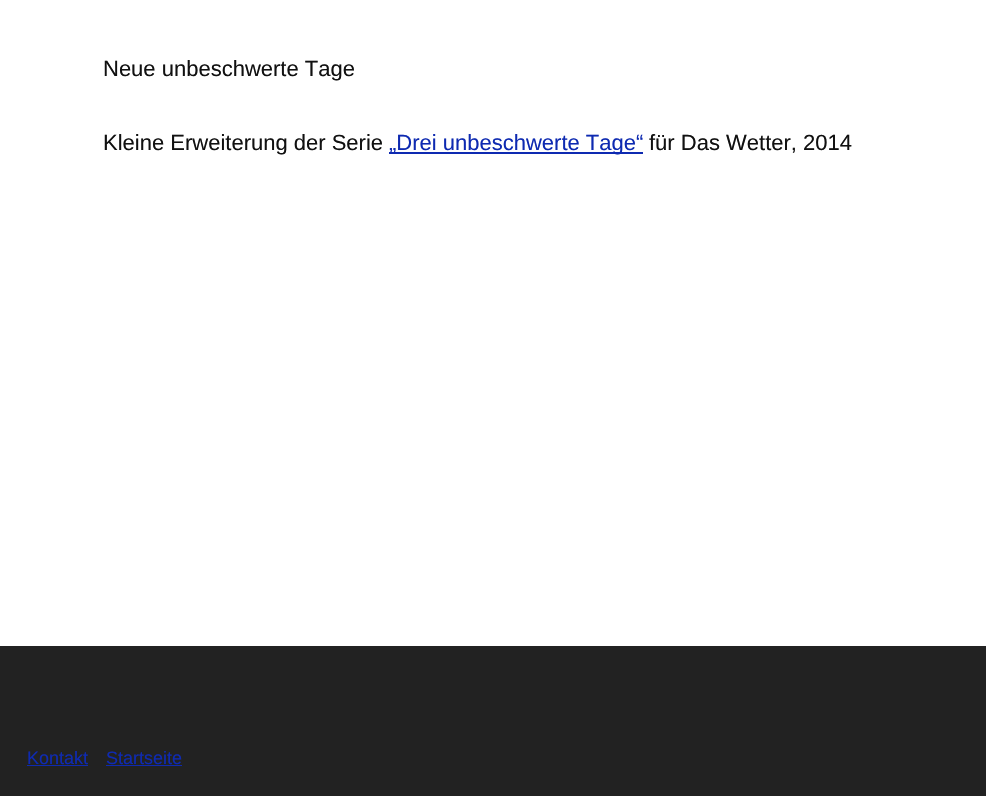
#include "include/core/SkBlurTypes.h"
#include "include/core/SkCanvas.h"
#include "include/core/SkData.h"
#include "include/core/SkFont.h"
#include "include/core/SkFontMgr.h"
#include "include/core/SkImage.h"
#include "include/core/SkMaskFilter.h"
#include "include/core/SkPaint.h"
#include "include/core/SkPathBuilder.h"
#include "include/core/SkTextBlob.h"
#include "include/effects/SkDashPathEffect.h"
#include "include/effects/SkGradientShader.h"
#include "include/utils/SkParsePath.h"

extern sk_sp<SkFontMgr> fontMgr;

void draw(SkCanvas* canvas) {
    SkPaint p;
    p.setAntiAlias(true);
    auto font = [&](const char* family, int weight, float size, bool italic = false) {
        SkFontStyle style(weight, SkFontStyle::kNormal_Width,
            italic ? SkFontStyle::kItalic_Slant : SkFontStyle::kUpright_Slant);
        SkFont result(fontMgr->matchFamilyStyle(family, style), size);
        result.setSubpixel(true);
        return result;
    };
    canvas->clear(0xFF222222);
    p.setColor(0xFFFFFFFF);
    canvas->drawRect(SkRect::MakeLTRB(0, 0, 986, 646), p);
    auto font1 = font("Liberation Sans", 400, 22);
    p.setColor(0xFF111111);
    canvas->drawString("Neue unbeschwerte Tage", 103, 76, font1, p);
    canvas->drawString("Kleine Erweiterung der Serie", 103, 150, font1, p);
    p.setColor(0xFF0E2AB1);
    canvas->drawRect(SkRect::MakeLTRB(389, 152, 643, 154), p);
    canvas->drawString("„Drei unbeschwerte Tage“", 389, 150, font1, p);
    p.setColor(0xFF111111);
    canvas->drawString("für Das Wetter, 2014", 649, 150, font1, p);
    auto font2 = font("Liberation Sans", 400, 18);
    p.setColor(0xFF0E2AB1);
    canvas->drawString("Kontakt", 27, 764, font2, p);
    canvas->drawRect(SkRect::MakeLTRB(27, 765, 88, 766), p);
    canvas->drawString("Startseite", 106, 764, font2, p);
    canvas->drawRect(SkRect::MakeLTRB(106, 765, 182, 766), p);
}
